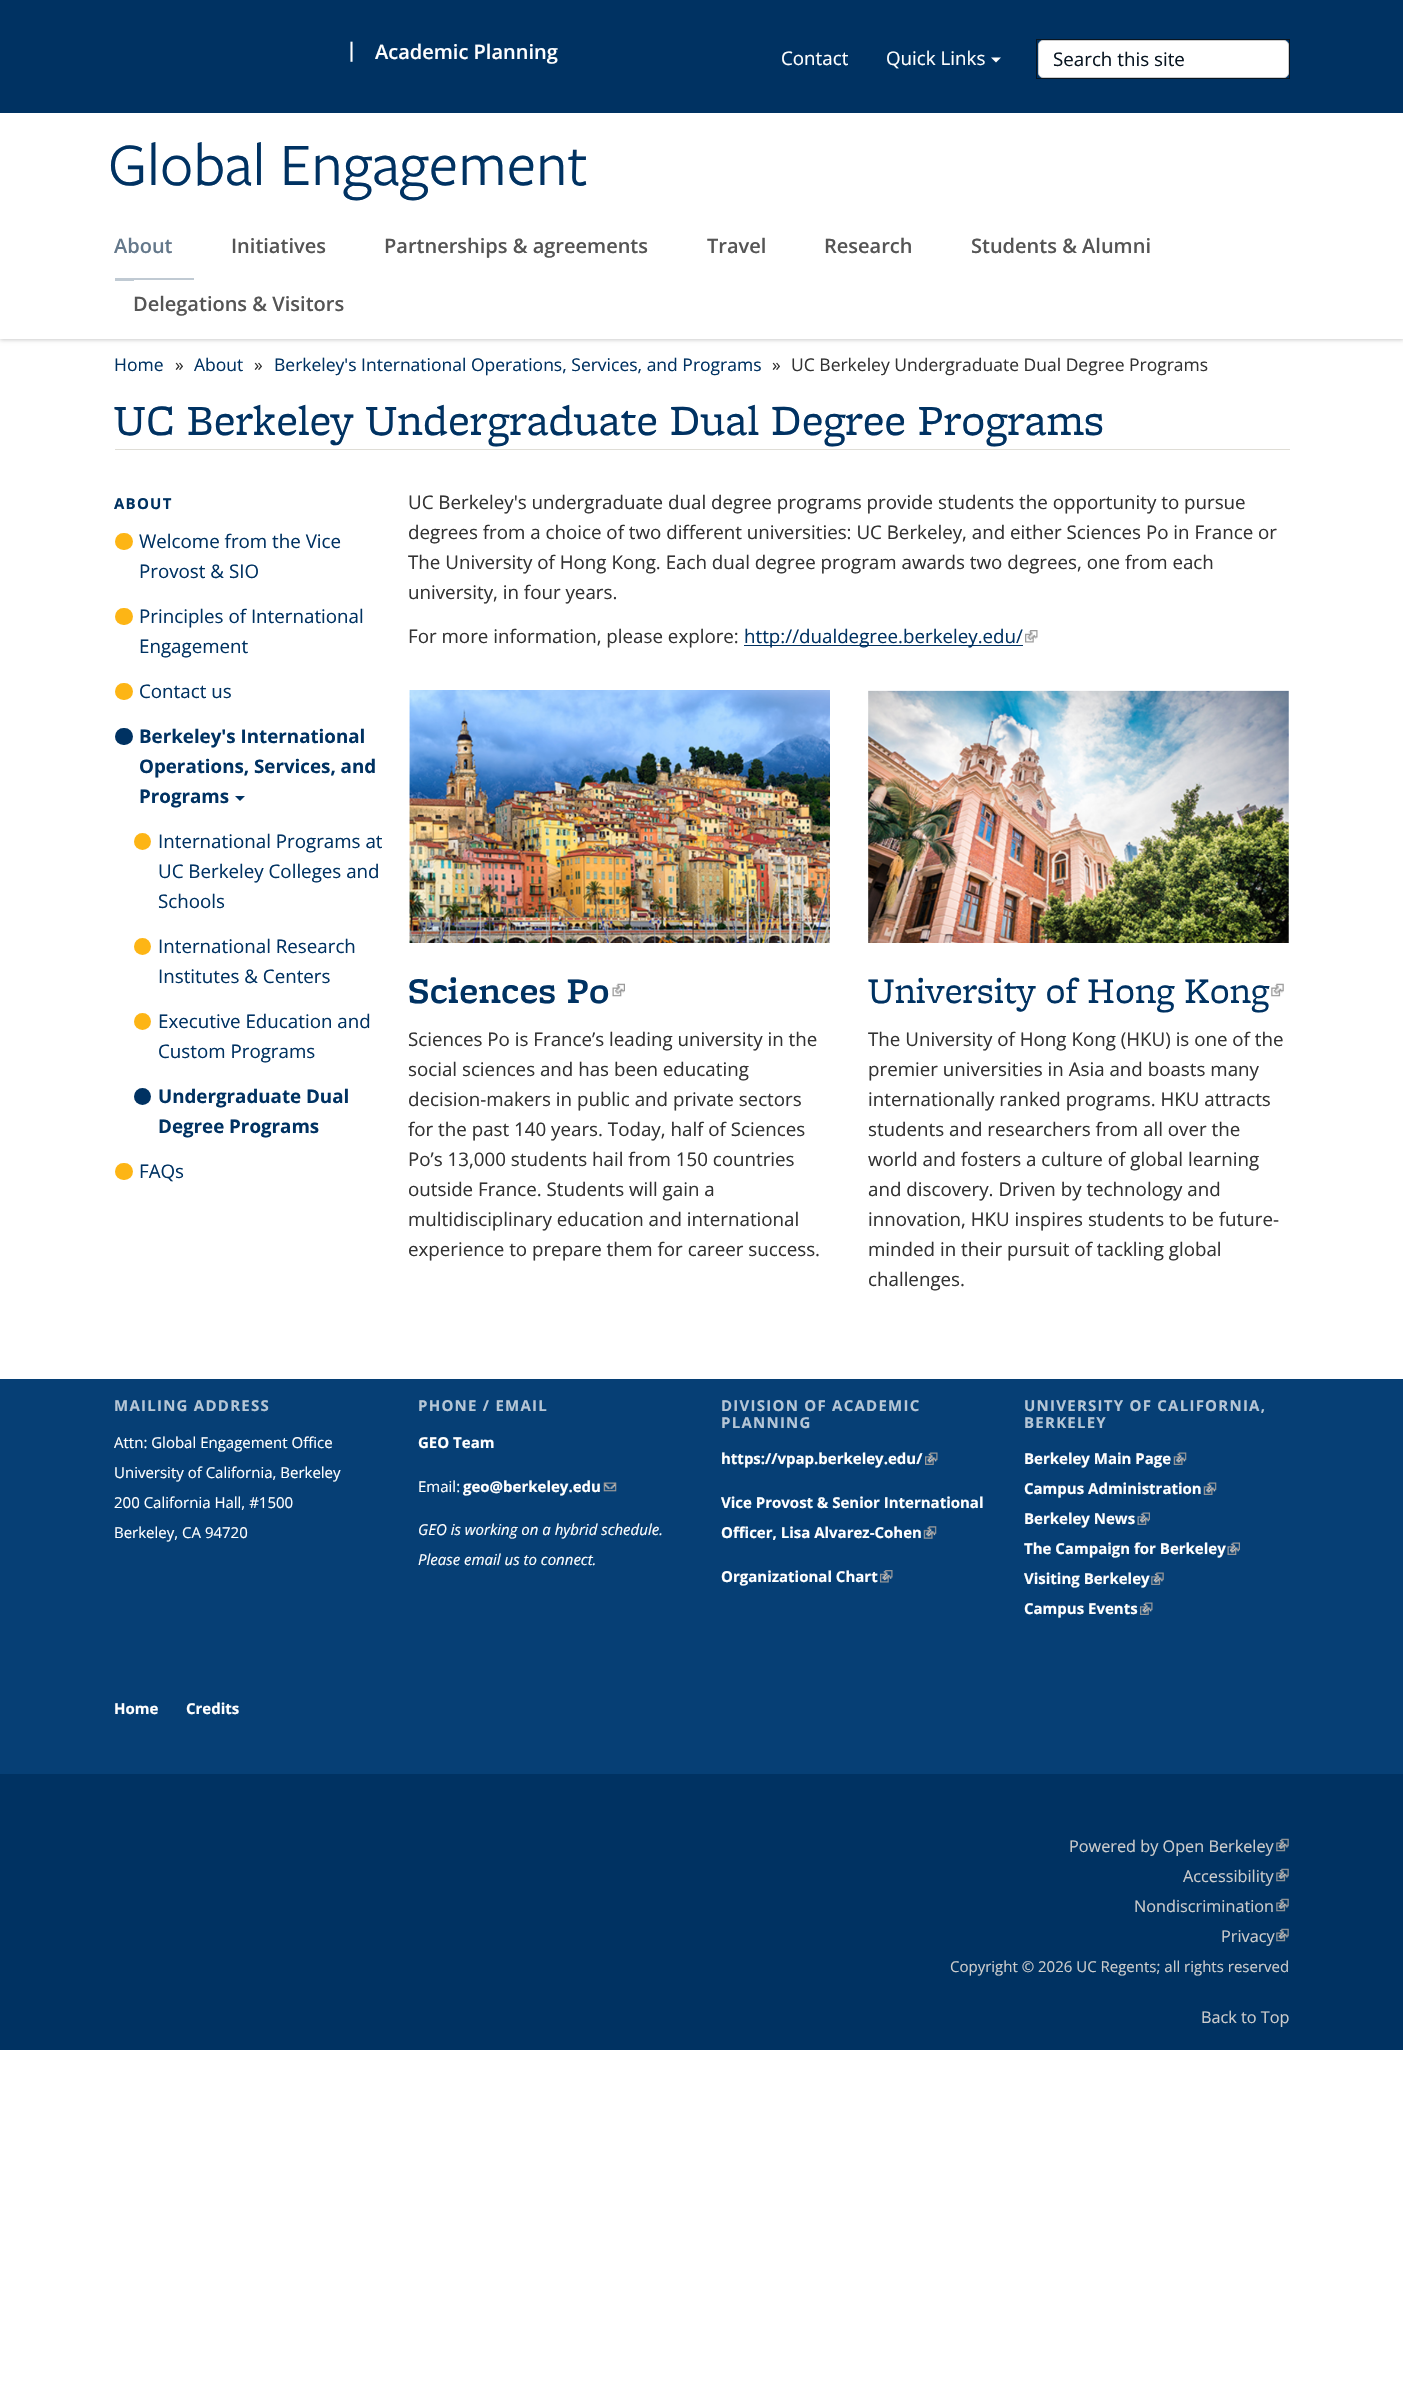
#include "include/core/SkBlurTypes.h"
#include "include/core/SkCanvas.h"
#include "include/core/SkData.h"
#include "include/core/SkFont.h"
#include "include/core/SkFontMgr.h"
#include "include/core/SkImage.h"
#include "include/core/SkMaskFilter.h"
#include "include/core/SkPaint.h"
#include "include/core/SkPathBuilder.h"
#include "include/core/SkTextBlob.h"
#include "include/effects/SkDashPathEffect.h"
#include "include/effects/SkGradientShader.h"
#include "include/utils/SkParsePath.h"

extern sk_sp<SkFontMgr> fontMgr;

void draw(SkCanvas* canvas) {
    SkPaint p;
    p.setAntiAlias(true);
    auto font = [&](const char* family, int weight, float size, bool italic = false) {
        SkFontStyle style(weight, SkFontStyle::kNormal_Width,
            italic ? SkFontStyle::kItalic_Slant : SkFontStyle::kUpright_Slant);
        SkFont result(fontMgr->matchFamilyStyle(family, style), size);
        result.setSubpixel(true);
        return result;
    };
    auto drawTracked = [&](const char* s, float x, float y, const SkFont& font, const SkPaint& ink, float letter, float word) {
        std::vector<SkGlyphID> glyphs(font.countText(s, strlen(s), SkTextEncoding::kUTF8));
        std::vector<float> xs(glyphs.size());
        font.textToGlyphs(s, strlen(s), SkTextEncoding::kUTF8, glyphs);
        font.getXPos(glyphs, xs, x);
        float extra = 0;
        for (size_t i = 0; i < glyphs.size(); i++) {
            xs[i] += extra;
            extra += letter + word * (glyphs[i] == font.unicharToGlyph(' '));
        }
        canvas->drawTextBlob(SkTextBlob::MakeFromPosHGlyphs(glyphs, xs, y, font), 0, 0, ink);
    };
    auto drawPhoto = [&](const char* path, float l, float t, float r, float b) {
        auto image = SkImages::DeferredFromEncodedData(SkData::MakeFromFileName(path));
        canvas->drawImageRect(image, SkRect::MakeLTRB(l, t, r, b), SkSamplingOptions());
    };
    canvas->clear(0xFFFFFFFF);
    canvas->save();
    canvas->clipPath(SkPathBuilder(SkPathFillType::kEvenOdd).moveTo(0, 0).lineTo(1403, 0).lineTo(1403, 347).lineTo(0, 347).close().moveTo(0, 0).lineTo(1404, 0).lineTo(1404, 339).lineTo(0, 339).close().detach(), true);
    p.setColor(0x33000000);
    p.setMaskFilter(SkMaskFilter::MakeBlur(kNormal_SkBlurStyle, 2));
    canvas->drawRect(SkRect::MakeLTRB(0, 1, 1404, 340), p);
    p.setMaskFilter(nullptr);
    canvas->restore();
    p.setColor(0xFF003262);
    canvas->drawRect(SkRect::MakeLTRB(0, 0, 1403, 113), p);
    auto font1 = font("Open Sans", 600, 20);
    p.setColor(0xFFFFFFFF);
    canvas->drawString("|", 346, 57, font1, p);
    canvas->drawString("Academic Planning", 375, 59, font1, p);
    auto font2 = font("Open Sans", 400, 18.75f);
    canvas->drawString("Contact", 781, 65, font2, p);
    canvas->drawString("Quick Links", 886, 65, font2, p);
    canvas->drawPath(SkPathBuilder().moveTo(991, 57.5f).lineTo(1001, 57.5f).lineTo(996, 62.5f).close().detach(), p);
    p.setStyle(SkPaint::kStroke_Style);
    p.setStrokeWidth(1);
    p.setColor(0xFF081521);
    canvas->drawRect(SkRect::MakeLTRB(1036.5f, 39.5f, 1289.5f, 78.5f), p);
    p.setStyle(SkPaint::kFill_Style);
    p.setColor(0xFFFFFFFF);
    canvas->drawRoundRect(SkRect::MakeLTRB(1038.5f, 40.5f, 1288.5f, 77.5f), 4.5f, 4.5f, p);
    p.setStyle(SkPaint::kStroke_Style);
    p.setColor(0xFFCCCCCC);
    canvas->drawRoundRect(SkRect::MakeLTRB(1038.5f, 40.5f, 1288.5f, 77.5f), 4.5f, 4.5f, p);
    p.setStyle(SkPaint::kFill_Style);
    p.setColor(0xFF081521);
    canvas->drawString("Search this site", 1053, 66, font2, p);
    p.setColor(0xFFC0CAD3);
    canvas->drawRect(SkRect::MakeLTRB(115, 278, 194, 281), p);
    p.setColor(0xFF64788B);
    canvas->drawString("About", 114, 253, font1, p);
    p.setColor(0xFF555555);
    {
        const struct { const char* s; float x, y; } items[] = {
            {"Initiatives", 231, 253},
            {"Partnerships & agreements", 384, 253},
            {"Travel", 707, 253},
            {"Research", 824, 253},
            {"Students & Alumni", 971, 253},
        };
        for (auto [s, x, y] : items) {
            canvas->drawString(s, x, y, font1, p);
        }
    }
    p.setColor(0xFFFFFFFF);
    canvas->drawRect(SkRect::MakeLTRB(134, 280, 365, 339), p);
    p.setColor(0xFF555555);
    canvas->drawString("Delegations & Visitors", 133, 311, font1, p);
    auto font3 = font("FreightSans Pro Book", 400, 62.5f);
    p.setColor(0xFF003262);
    canvas->drawString("Global Engagement", 108, 185, font3, p);
    auto font4 = font("Open Sans", 400, 17.5f);
    canvas->drawString("Home", 114, 371, font4, p);
    p.setColor(0xFF333333);
    canvas->drawString("»", 175, 371, font4, p);
    p.setColor(0xFF003262);
    canvas->drawString("About", 194, 371, font4, p);
    p.setColor(0xFF333333);
    canvas->drawString("»", 254, 371, font4, p);
    p.setColor(0xFF003262);
    canvas->drawString("Berkeley's International Operations, Services, and Programs", 274, 371, font4, p);
    p.setColor(0xFF333333);
    canvas->drawString("»", 772, 371, font4, p);
    canvas->drawString("UC Berkeley Undergraduate Dual Degree Programs", 791, 371, font4, p);
    p.setColor(0xFFDFDDD6);
    canvas->drawRect(SkRect::MakeLTRB(115, 449, 1290, 450), p);
    auto font5 = font("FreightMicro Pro", 400, 45);
    p.setColor(0xFF003262);
    canvas->drawString("UC Berkeley Undergraduate Dual Degree Programs", 114, 435, font5, p);
    auto font6 = font("Open Sans", 700, 15);
    drawTracked("ABOUT", 114, 509, font6, p, 1.25f, 0);
    p.setColor(0xFFFDB515);
    canvas->drawRoundRect(SkRect::MakeLTRB(115, 533, 133, 550), 8.5f, 8.5f, p);
    p.setColor(0xFF003262);
    canvas->drawString("Welcome from the Vice", 139, 548, font2, p);
    canvas->drawString("Provost & SIO", 139, 578, font2, p);
    p.setColor(0xFFFDB515);
    canvas->drawRoundRect(SkRect::MakeLTRB(115, 608, 133, 625), 8.5f, 8.5f, p);
    p.setColor(0xFF003262);
    canvas->drawString("Principles of International", 139, 623, font2, p);
    canvas->drawString("Engagement", 139, 653, font2, p);
    p.setColor(0xFFFDB515);
    canvas->drawRoundRect(SkRect::MakeLTRB(115, 683, 133, 700), 8.5f, 8.5f, p);
    p.setColor(0xFF003262);
    canvas->drawString("Contact us", 139, 698, font2, p);
    canvas->drawRoundRect(SkRect::MakeLTRB(115, 728, 133, 745), 8.5f, 8.5f, p);
    auto font7 = font("Open Sans", 700, 18.75f);
    {
        const struct { const char* s; float x, y; } items[] = {
            {"Berkeley's International", 139, 743},
            {"Operations, Services, and", 139, 773},
            {"Programs", 139, 803},
        };
        for (auto [s, x, y] : items) {
            canvas->drawString(s, x, y, font7, p);
        }
    }
    canvas->drawPath(SkPathBuilder().moveTo(235, 796).lineTo(245, 796).lineTo(240, 801).close().detach(), p);
    p.setColor(0xFFFDB515);
    canvas->drawCircle(142.5f, 841.5f, 8.5f, p);
    p.setColor(0xFF003262);
    {
        const struct { const char* s; float x, y; } items[] = {
            {"International Programs at", 158, 848},
            {"UC Berkeley Colleges and", 158, 878},
            {"Schools", 158, 908},
        };
        for (auto [s, x, y] : items) {
            canvas->drawString(s, x, y, font2, p);
        }
    }
    p.setColor(0xFFFDB515);
    canvas->drawCircle(142.5f, 946.5f, 8.5f, p);
    p.setColor(0xFF003262);
    canvas->drawString("International Research", 158, 953, font2, p);
    canvas->drawString("Institutes & Centers", 158, 983, font2, p);
    p.setColor(0xFFFDB515);
    canvas->drawCircle(142.5f, 1021.5f, 8.5f, p);
    p.setColor(0xFF003262);
    canvas->drawString("Executive Education and", 158, 1028, font2, p);
    canvas->drawString("Custom Programs", 158, 1058, font2, p);
    canvas->drawCircle(142.5f, 1096.5f, 8.5f, p);
    canvas->drawString("Undergraduate Dual", 158, 1103, font7, p);
    canvas->drawString("Degree Programs", 158, 1133, font7, p);
    p.setColor(0xFFFDB515);
    canvas->drawRoundRect(SkRect::MakeLTRB(115, 1163, 133, 1180), 8.5f, 8.5f, p);
    p.setColor(0xFF003262);
    canvas->drawString("FAQs", 139, 1178, font2, p);
    p.setColor(0xFF333333);
    {
        const struct { const char* s; float x, y; } items[] = {
            {"UC Berkeley's undergraduate dual degree programs provide students the opportunity to pursue", 408, 509},
            {"degrees from a choice of two different universities: UC Berkeley, and either Sciences Po in France or", 408, 539},
            {"The University of Hong Kong. Each dual degree program awards two degrees, one from each", 408, 569},
            {"university, in four years.", 408, 599},
            {"For more information, please explore:", 408, 643},
        };
        for (auto [s, x, y] : items) {
            canvas->drawString(s, x, y, font2, p);
        }
    }
    p.setColor(0xFF003262);
    canvas->drawRect(SkRect::MakeLTRB(744, 645, 1023, 646), p);
    canvas->drawString("http://dualdegree.berkeley.edu/", 744, 643, font2, p);
    drawPhoto("media/1.png", 1025, 630, 1038, 643);
    drawPhoto("media/2.png", 409, 690, 830, 943);
    auto font8 = font("FreightMicro Pro", 600, 37.5f);
    canvas->drawString("Sciences Po", 408, 1003, font8, p);
    drawPhoto("media/3.png", 612, 983, 625, 997);
    p.setColor(0xFF333333);
    {
        const struct { const char* s; float x, y; } items[] = {
            {"Sciences Po is France’s leading university in the", 408, 1046},
            {"social sciences and has been educating", 408, 1076},
            {"decision-makers in public and private sectors", 408, 1106},
            {"for the past 140 years. Today, half of Sciences", 408, 1136},
            {"Po’s 13,000 students hail from 150 countries", 408, 1166},
            {"outside France. Students will gain a", 408, 1196},
            {"multidisciplinary education and international", 408, 1226},
            {"experience to prepare them for career success.", 408, 1256},
        };
        for (auto [s, x, y] : items) {
            canvas->drawString(s, x, y, font2, p);
        }
    }
    drawPhoto("media/4.png", 868, 690, 1289, 943);
    auto font9 = font("FreightMicro Pro", 400, 37.5f);
    p.setColor(0xFF003262);
    canvas->drawString("University of Hong Kong", 868, 1003, font9, p);
    drawPhoto("media/5.png", 1271, 983, 1284, 997);
    p.setColor(0xFF333333);
    {
        const struct { const char* s; float x, y; } items[] = {
            {"The University of Hong Kong (HKU) is one of the", 868, 1046},
            {"premier universities in Asia and boasts many", 868, 1076},
            {"internationally ranked programs. HKU attracts", 868, 1106},
            {"students and researchers from all over the", 868, 1136},
            {"world and fosters a culture of global learning", 868, 1166},
            {"and discovery. Driven by technology and", 868, 1196},
            {"innovation, HKU inspires students to be future-", 868, 1226},
            {"minded in their pursuit of tackling global", 868, 1256},
            {"challenges.", 868, 1286},
        };
        for (auto [s, x, y] : items) {
            canvas->drawString(s, x, y, font2, p);
        }
    }
    p.setColor(0xFF003262);
    canvas->drawRect(SkRect::MakeLTRB(0, 1774, 1403, 2050), p);
    p.setColor(0xFF063F75);
    canvas->drawRect(SkRect::MakeLTRB(0, 1379, 1403, 1774), p);
    p.setColor(0xFFB5C6D6);
    drawTracked("MAILING ADDRESS", 114, 1411, font6, p, 1.25f, 0);
    auto font10 = font("Open Sans", 400, 15);
    p.setColor(0xFFFFFFFF);
    {
        const struct { const char* s; float x, y; } items[] = {
            {"Attn: Global Engagement Office", 114, 1448},
            {"University of California, Berkeley", 114, 1478},
            {"200 California Hall, #1500", 114, 1508},
            {"Berkeley, CA 94720", 114, 1538},
        };
        for (auto [s, x, y] : items) {
            canvas->drawString(s, x, y, font10, p);
        }
    }
    p.setColor(0xFFB5C6D6);
    drawTracked("PHONE / EMAIL", 418, 1411, font6, p, 1.25f, 0);
    p.setColor(0xFFFFFFFF);
    canvas->drawString("GEO Team", 418, 1448, font6, p);
    canvas->drawString("Email:", 418, 1492, font10, p);
    canvas->drawString("geo@berkeley.edu", 463, 1492, font6, p);
    drawPhoto("media/6.png", 603, 1482, 617, 1492);
    auto font11 = font("Open Sans", 400, 15, true);
    canvas->drawString("GEO is working on a hybrid schedule.", 418, 1535, font11, p);
    canvas->drawString("Please email us to connect.", 418, 1565, font11, p);
    p.setColor(0xFFB5C6D6);
    drawTracked("DIVISION OF ACADEMIC", 721, 1411, font6, p, 1.25f, 0);
    drawTracked("PLANNING", 721, 1428, font6, p, 1.25f, 0);
    p.setColor(0xFFFFFFFF);
    canvas->drawString("https://vpap.berkeley.edu/", 721, 1464, font6, p);
    drawPhoto("media/7.png", 925, 1452, 938, 1465);
    canvas->drawString("Vice Provost & Senior International", 721, 1508, font6, p);
    canvas->drawString("Officer, Lisa Alvarez-Cohen", 721, 1538, font6, p);
    drawPhoto("media/8.png", 923, 1526, 937, 1539);
    canvas->drawString("Organizational Chart", 721, 1582, font6, p);
    drawPhoto("media/9.png", 880, 1570, 893, 1583);
    p.setColor(0xFFB5C6D6);
    drawTracked("UNIVERSITY OF CALIFORNIA,", 1024, 1411, font6, p, 1.25f, 0);
    drawTracked("BERKELEY", 1024, 1428, font6, p, 1.25f, 0);
    p.setColor(0xFFFFFFFF);
    canvas->drawString("Berkeley Main Page", 1024, 1464, font6, p);
    drawPhoto("media/10.png", 1173, 1452, 1187, 1465);
    canvas->drawString("Campus Administration", 1024, 1494, font6, p);
    drawPhoto("media/11.png", 1203, 1482, 1217, 1495);
    canvas->drawString("Berkeley News", 1024, 1524, font6, p);
    drawPhoto("media/12.png", 1137, 1512, 1150, 1525);
    canvas->drawString("The Campaign for Berkeley", 1024, 1554, font6, p);
    drawPhoto("media/13.png", 1227, 1542, 1240, 1555);
    canvas->drawString("Visiting Berkeley", 1024, 1584, font6, p);
    drawPhoto("media/14.png", 1151, 1572, 1164, 1585);
    canvas->drawString("Campus Events", 1024, 1614, font6, p);
    drawPhoto("media/7.png", 1140, 1602, 1153, 1615);
    canvas->drawString("Home", 114, 1714, font6, p);
    canvas->drawString("Credits", 186, 1714, font6, p);
    auto font12 = font("Open Sans", 400, 16.25f);
    p.setColor(0xFFCCCCCC);
    canvas->drawString("Powered by Open Berkeley", 1069, 1852, font12, p);
    drawPhoto("media/15.png", 1276, 1838, 1289, 1852);
    canvas->drawString("Accessibility", 1183, 1882, font12, p);
    drawPhoto("media/15.png", 1276, 1868, 1289, 1882);
    canvas->drawString("Nondiscrimination", 1134, 1912, font12, p);
    drawPhoto("media/15.png", 1276, 1898, 1289, 1912);
    canvas->drawString("Privacy", 1221, 1942, font12, p);
    drawPhoto("media/15.png", 1276, 1928, 1289, 1942);
    canvas->drawString("Copyright © 2026 UC Regents; all rights reserved", 950, 1972, font10, p);
    canvas->drawString("Back to Top", 1201, 2023, font12, p);
}
